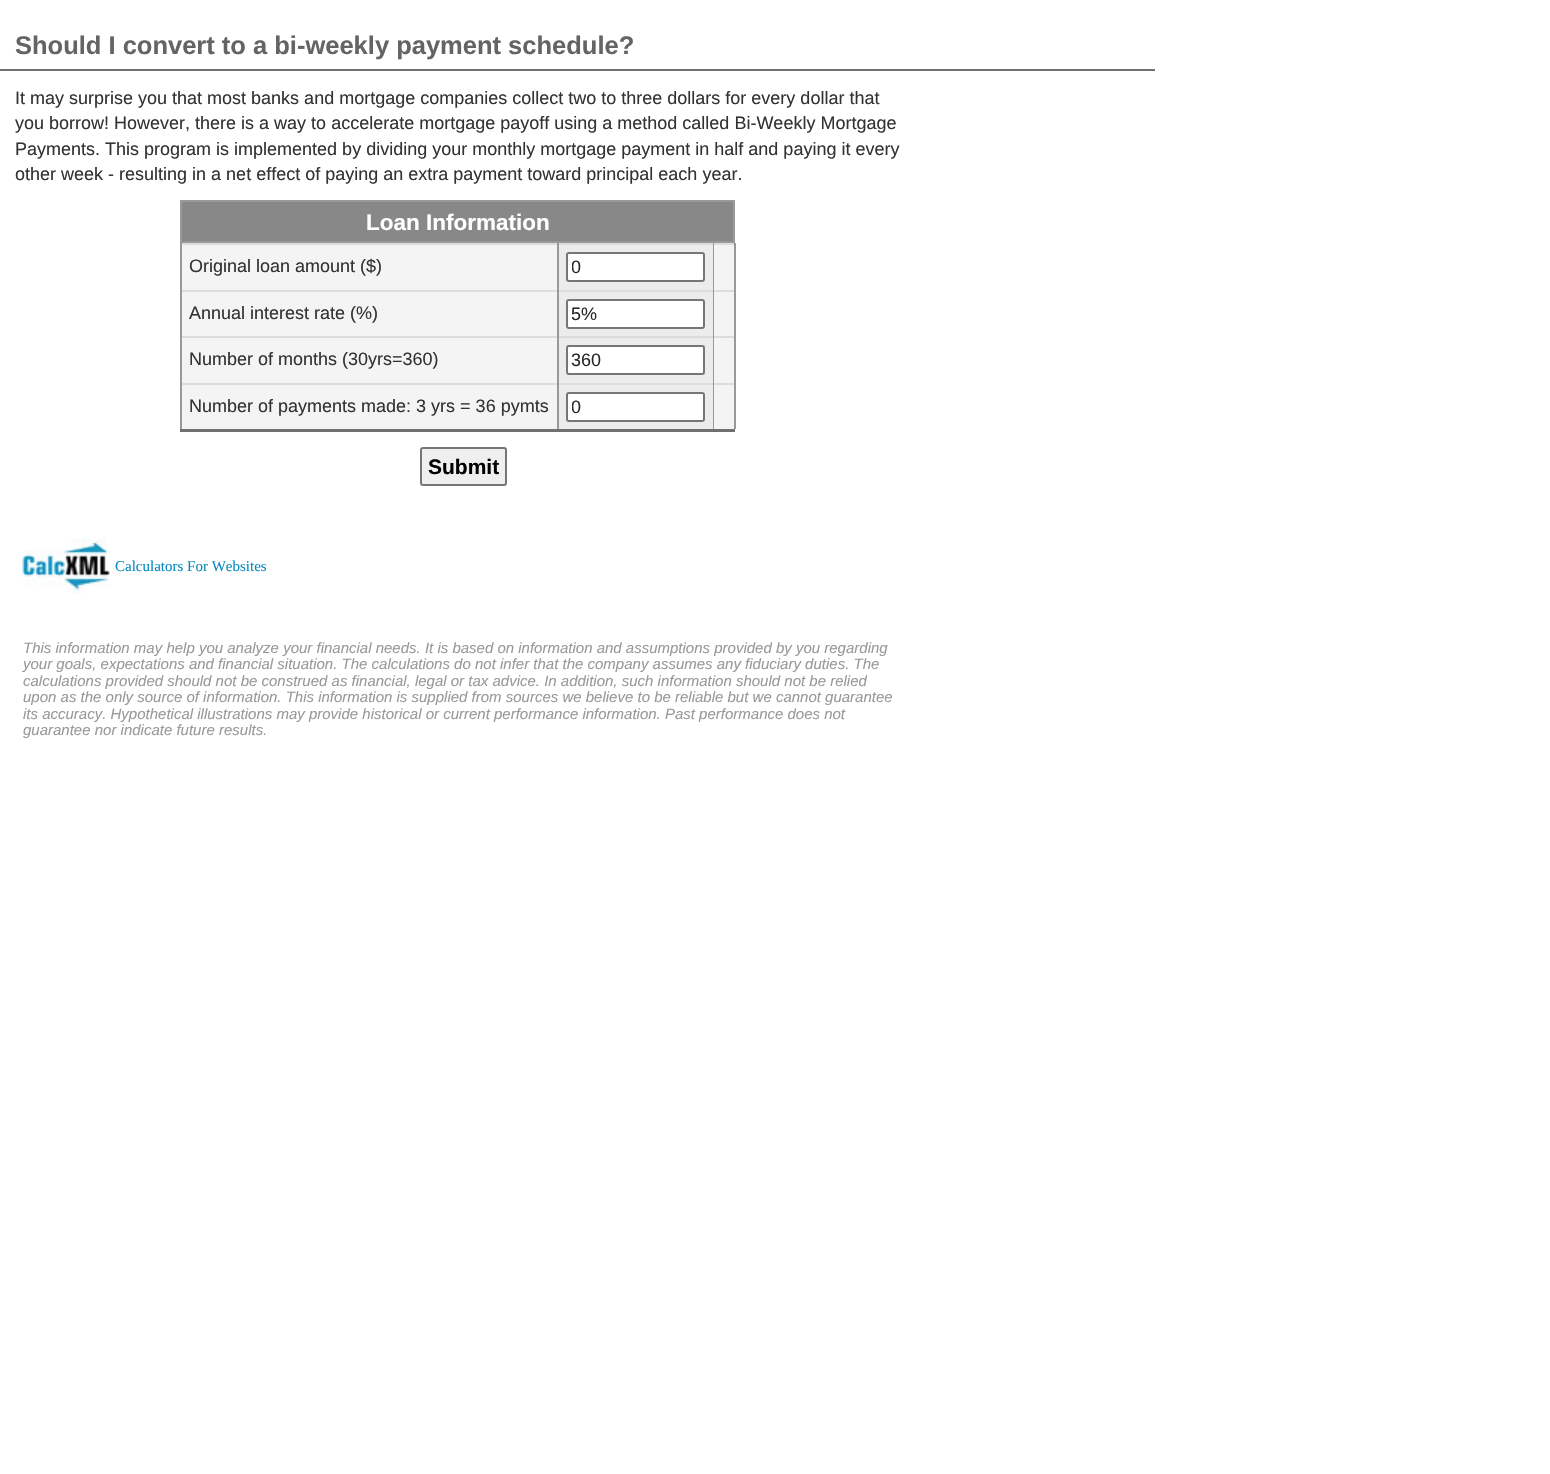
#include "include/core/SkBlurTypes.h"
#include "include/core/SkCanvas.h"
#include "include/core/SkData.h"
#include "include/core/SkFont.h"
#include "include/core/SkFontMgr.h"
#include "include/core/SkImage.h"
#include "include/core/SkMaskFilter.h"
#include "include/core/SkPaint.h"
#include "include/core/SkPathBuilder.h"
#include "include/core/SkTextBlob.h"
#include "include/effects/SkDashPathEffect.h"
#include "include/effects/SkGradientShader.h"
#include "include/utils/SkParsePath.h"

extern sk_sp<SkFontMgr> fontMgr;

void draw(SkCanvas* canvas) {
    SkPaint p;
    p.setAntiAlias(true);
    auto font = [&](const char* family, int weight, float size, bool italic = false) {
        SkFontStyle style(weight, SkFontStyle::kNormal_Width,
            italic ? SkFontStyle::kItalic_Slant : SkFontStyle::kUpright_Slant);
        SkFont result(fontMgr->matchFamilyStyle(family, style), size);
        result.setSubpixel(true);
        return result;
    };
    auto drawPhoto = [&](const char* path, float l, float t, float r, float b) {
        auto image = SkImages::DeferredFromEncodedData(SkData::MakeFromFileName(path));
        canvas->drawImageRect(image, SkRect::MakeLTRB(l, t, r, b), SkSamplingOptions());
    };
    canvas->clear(0xFFFFFFFF);
    p.setColor(0xFF707070);
    canvas->drawRect(SkRect::MakeLTRB(0, 69, 1155, 71), p);
    auto font1 = font("Liberation Sans", 700, 25.5f);
    p.setColor(0xFF646464);
    canvas->drawString("Should I convert to a bi-weekly payment schedule?", 15, 54, font1, p);
    auto font2 = font("Liberation Sans", 400, 18);
    p.setColor(0xFF333333);
    {
        const struct { const char* s; float x, y; } items[] = {
            {"It may surprise you that most banks and mortgage companies collect two to three dollars for every dollar that", 15, 104},
            {"you borrow! However, there is a way to accelerate mortgage payoff using a method called Bi-Weekly Mortgage", 15, 129},
            {"Payments. This program is implemented by dividing your monthly mortgage payment in half and paying it every", 15, 155},
            {"other week - resulting in a net effect of paying an extra payment toward principal each year.", 15, 180},
        };
        for (auto [s, x, y] : items) {
            canvas->drawString(s, x, y, font2, p);
        }
    }
    p.setColor(0xFF707070);
    canvas->drawRect(SkRect::MakeLTRB(180, 429, 735, 432), p);
    p.setColor(0xFF888888);
    canvas->drawRect(SkRect::MakeLTRB(181, 201, 734, 242), p);
    p.setStyle(SkPaint::kStroke_Style);
    p.setStrokeWidth(2);
    p.setColor(0xFF999999);
    canvas->drawRect(SkRect::MakeLTRB(181, 201, 734, 242), p);
    auto font3 = font("Liberation Sans", 700, 22.5f);
    p.setStyle(SkPaint::kFill_Style);
    p.setColor(0xFFFFFFFF);
    canvas->drawString("Loan Information", 366, 230, font3, p);
    {
        const struct { float l, t, r, b; SkColor color; } items[] = {
            {182, 245, 557, 290, 0xFFF4F4F4},
            {180, 243, 735, 245, 0xFFDCDCDC},
            {180, 243, 182, 290, 0xFF999999},
        };
        for (auto [l, t, r, b, color] : items) {
            p.setColor(color);
            canvas->drawRect(SkRect::MakeLTRB(l, t, r, b), p);
        }
    }
    p.setColor(0xFF333333);
    canvas->drawString("Original loan amount ($)", 189, 272, font2, p);
    {
        const struct { float l, t, r, b; SkColor color; } items[] = {
            {559, 245, 713, 290, 0xFFECECEC},
            {713, 243, 714, 290, 0xFF999999},
            {557, 243, 559, 290, 0xFF999999},
        };
        for (auto [l, t, r, b, color] : items) {
            p.setColor(color);
            canvas->drawRect(SkRect::MakeLTRB(l, t, r, b), p);
        }
    }
    p.setColor(0xFFFFFFFF);
    canvas->drawRoundRect(SkRect::MakeLTRB(567, 253, 704, 281), 2, 2, p);
    p.setStyle(SkPaint::kStroke_Style);
    p.setColor(0xFF767676);
    canvas->drawRoundRect(SkRect::MakeLTRB(567, 253, 704, 281), 2, 2, p);
    canvas->save();
    canvas->clipRect(SkRect::MakeLTRB(572, 257, 699, 278));
    p.setStyle(SkPaint::kFill_Style);
    p.setColor(0xFF282828);
    canvas->drawString("0", 571, 273, font2, p);
    canvas->restore();
    {
        const struct { float l, t, r, b; SkColor color; } items[] = {
            {714, 245, 734, 290, 0xFFF4F4F4},
            {734, 243, 736, 290, 0xFF999999},
            {182, 292, 557, 336, 0xFFF4F4F4},
            {180, 290, 735, 292, 0xFFDCDCDC},
            {180, 290, 182, 336, 0xFF999999},
        };
        for (auto [l, t, r, b, color] : items) {
            p.setColor(color);
            canvas->drawRect(SkRect::MakeLTRB(l, t, r, b), p);
        }
    }
    p.setColor(0xFF333333);
    canvas->drawString("Annual interest rate (%)", 189, 319, font2, p);
    {
        const struct { float l, t, r, b; SkColor color; } items[] = {
            {559, 292, 713, 336, 0xFFECECEC},
            {713, 290, 714, 336, 0xFF999999},
            {557, 290, 559, 336, 0xFF999999},
        };
        for (auto [l, t, r, b, color] : items) {
            p.setColor(color);
            canvas->drawRect(SkRect::MakeLTRB(l, t, r, b), p);
        }
    }
    p.setColor(0xFFFFFFFF);
    canvas->drawRoundRect(SkRect::MakeLTRB(567, 300, 704, 328), 2, 2, p);
    p.setStyle(SkPaint::kStroke_Style);
    p.setColor(0xFF767676);
    canvas->drawRoundRect(SkRect::MakeLTRB(567, 300, 704, 328), 2, 2, p);
    p.setStyle(SkPaint::kFill_Style);
    p.setColor(0xFF282828);
    canvas->drawString("5%", 571, 320, font2, p);
    {
        const struct { float l, t, r, b; SkColor color; } items[] = {
            {714, 292, 734, 336, 0xFFF4F4F4},
            {734, 290, 736, 336, 0xFF999999},
            {182, 338, 557, 383, 0xFFF4F4F4},
            {180, 336, 735, 338, 0xFFDCDCDC},
            {180, 336, 182, 383, 0xFF999999},
        };
        for (auto [l, t, r, b, color] : items) {
            p.setColor(color);
            canvas->drawRect(SkRect::MakeLTRB(l, t, r, b), p);
        }
    }
    p.setColor(0xFF333333);
    canvas->drawString("Number of months (30yrs=360)", 189, 365, font2, p);
    {
        const struct { float l, t, r, b; SkColor color; } items[] = {
            {559, 338, 713, 383, 0xFFECECEC},
            {713, 336, 714, 383, 0xFF999999},
            {557, 336, 559, 383, 0xFF999999},
        };
        for (auto [l, t, r, b, color] : items) {
            p.setColor(color);
            canvas->drawRect(SkRect::MakeLTRB(l, t, r, b), p);
        }
    }
    p.setColor(0xFFFFFFFF);
    canvas->drawRoundRect(SkRect::MakeLTRB(567, 346, 704, 374), 2, 2, p);
    p.setStyle(SkPaint::kStroke_Style);
    p.setColor(0xFF767676);
    canvas->drawRoundRect(SkRect::MakeLTRB(567, 346, 704, 374), 2, 2, p);
    p.setStyle(SkPaint::kFill_Style);
    p.setColor(0xFF282828);
    canvas->drawString("360", 571, 366, font2, p);
    {
        const struct { float l, t, r, b; SkColor color; } items[] = {
            {714, 338, 734, 383, 0xFFF4F4F4},
            {734, 336, 736, 383, 0xFF999999},
            {182, 385, 557, 429, 0xFFF4F4F4},
            {180, 383, 735, 385, 0xFFDCDCDC},
            {180, 383, 182, 429, 0xFF999999},
        };
        for (auto [l, t, r, b, color] : items) {
            p.setColor(color);
            canvas->drawRect(SkRect::MakeLTRB(l, t, r, b), p);
        }
    }
    p.setColor(0xFF333333);
    canvas->drawString("Number of payments made: 3 yrs = 36 pymts", 189, 412, font2, p);
    {
        const struct { float l, t, r, b; SkColor color; } items[] = {
            {559, 385, 713, 429, 0xFFECECEC},
            {713, 383, 714, 429, 0xFF999999},
            {557, 383, 559, 429, 0xFF999999},
        };
        for (auto [l, t, r, b, color] : items) {
            p.setColor(color);
            canvas->drawRect(SkRect::MakeLTRB(l, t, r, b), p);
        }
    }
    p.setColor(0xFFFFFFFF);
    canvas->drawRoundRect(SkRect::MakeLTRB(567, 393, 704, 421), 2, 2, p);
    p.setStyle(SkPaint::kStroke_Style);
    p.setColor(0xFF767676);
    canvas->drawRoundRect(SkRect::MakeLTRB(567, 393, 704, 421), 2, 2, p);
    canvas->save();
    canvas->clipRect(SkRect::MakeLTRB(572, 396, 699, 417));
    p.setStyle(SkPaint::kFill_Style);
    p.setColor(0xFF282828);
    canvas->drawString("0", 571, 413, font2, p);
    canvas->restore();
    p.setColor(0xFFF4F4F4);
    canvas->drawRect(SkRect::MakeLTRB(714, 385, 734, 429), p);
    p.setColor(0xFF999999);
    canvas->drawRect(SkRect::MakeLTRB(734, 383, 736, 429), p);
    p.setColor(0xFFEFEFEF);
    canvas->drawRoundRect(SkRect::MakeLTRB(421, 448, 506, 485), 2, 2, p);
    p.setStyle(SkPaint::kStroke_Style);
    p.setColor(0xFF767676);
    canvas->drawRoundRect(SkRect::MakeLTRB(421, 448, 506, 485), 2, 2, p);
    auto font4 = font("Liberation Sans", 700, 21);
    p.setStyle(SkPaint::kFill_Style);
    p.setColor(0xFF000000);
    canvas->drawString("Submit", 428, 474, font4, p);
    drawPhoto("media/1.png", 22, 538, 110, 594);
    auto font5 = font("Liberation Serif", 400, 15);
    p.setColor(0xFF088ABE);
    canvas->drawString("Calculators For Websites", 115, 571, font5, p);
    auto font6 = font("Liberation Sans", 400, 15, true);
    p.setColor(0xFF999999);
    {
        const struct { const char* s; float x, y; } items[] = {
            {"This information may help you analyze your financial needs. It is based on information and assumptions provided by you regarding", 23, 653},
            {"your goals, expectations and financial situation. The calculations do not infer that the company assumes any fiduciary duties. The", 23, 669},
            {"calculations provided should not be construed as financial, legal or tax advice. In addition, such information should not be relied", 23, 686},
            {"upon as the only source of information. This information is supplied from sources we believe to be reliable but we cannot guarantee", 23, 702},
            {"its accuracy. Hypothetical illustrations may provide historical or current performance information. Past performance does not", 23, 719},
            {"guarantee nor indicate future results.", 23, 735},
        };
        for (auto [s, x, y] : items) {
            canvas->drawString(s, x, y, font6, p);
        }
    }
}
